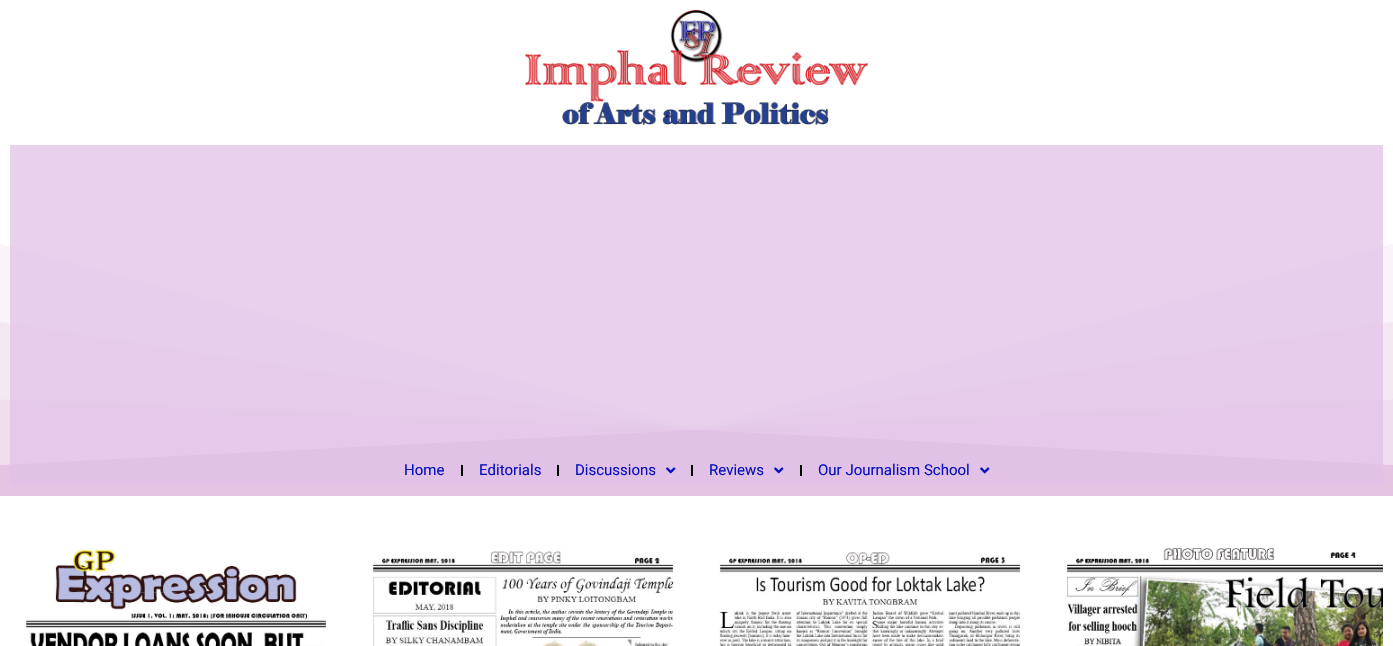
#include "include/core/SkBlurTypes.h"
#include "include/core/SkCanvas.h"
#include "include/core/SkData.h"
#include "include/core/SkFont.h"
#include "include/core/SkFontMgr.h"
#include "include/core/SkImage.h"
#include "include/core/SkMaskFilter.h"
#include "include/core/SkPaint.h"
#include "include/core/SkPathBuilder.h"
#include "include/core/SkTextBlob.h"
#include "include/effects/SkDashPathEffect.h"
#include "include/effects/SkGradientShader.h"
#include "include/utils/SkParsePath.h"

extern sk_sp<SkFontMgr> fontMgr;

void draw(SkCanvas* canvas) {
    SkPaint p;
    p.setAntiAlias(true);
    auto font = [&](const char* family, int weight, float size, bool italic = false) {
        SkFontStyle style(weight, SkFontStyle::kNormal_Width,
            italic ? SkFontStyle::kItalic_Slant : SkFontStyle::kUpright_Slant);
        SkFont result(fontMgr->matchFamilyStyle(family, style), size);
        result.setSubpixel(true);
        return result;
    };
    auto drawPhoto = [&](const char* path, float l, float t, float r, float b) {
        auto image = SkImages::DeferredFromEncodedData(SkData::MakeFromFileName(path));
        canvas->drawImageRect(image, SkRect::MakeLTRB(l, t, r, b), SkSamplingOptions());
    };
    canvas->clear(0xFFFFFFFF);
    canvas->save();
    canvas->clipRect(SkRect::MakeLTRB(0, 167, 1393, 496));
    p.setColor(0xFFFAF3F9);
    canvas->drawPath(SkPathBuilder().moveTo(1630, 497).lineTo(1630, 181).lineTo(696, 428).lineTo(-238, 181).lineTo(-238, 497).close().detach(), p);
    p.setColor(0xFFF5E8F3);
    canvas->drawPath(SkPathBuilder().moveTo(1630, 497).lineTo(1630, 285).lineTo(696, 430).lineTo(-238, 285).lineTo(-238, 497).close().detach(), p);
    p.setColor(0xFFF0DEEF);
    canvas->drawPath(SkPathBuilder().moveTo(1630, 497).lineTo(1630, 389).lineTo(696, 430).lineTo(-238, 389).lineTo(-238, 497).close().detach(), p);
    p.setColor(0xFFE5C4E3);
    canvas->drawPath(SkPathBuilder().moveTo(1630, 497).lineTo(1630, 477).lineTo(696, 430).lineTo(-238, 477).lineTo(-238, 497).close().detach(), p);
    canvas->restore();
    drawPhoto("media/1.png", 525, 10, 868, 125);
    p.setColor(0xB8E1BFE8);
    canvas->drawRect(SkRect::MakeLTRB(10, 145, 1383, 485), p);
    auto font1 = font("Roboto", 400, 15);
    p.setColor(0xFF0510BF);
    canvas->drawString("Home", 404, 475, font1, p);
    p.setColor(0xFF000000);
    canvas->drawRect(SkRect::MakeLTRB(461, 465, 463, 476), p);
    p.setColor(0xFF0510BF);
    canvas->drawString("Editorials", 479, 475, font1, p);
    p.setColor(0xFF000000);
    canvas->drawRect(SkRect::MakeLTRB(557, 465, 559, 476), p);
    p.setColor(0xFF0510BF);
    canvas->drawString("Discussions", 575, 475, font1, p);
    drawPhoto("media/2.png", 666, 467, 676, 474);
    p.setColor(0xFF000000);
    canvas->drawRect(SkRect::MakeLTRB(691, 465, 693, 476), p);
    p.setColor(0xFF0510BF);
    canvas->drawString("Reviews", 709, 475, font1, p);
    drawPhoto("media/2.png", 774, 467, 784, 474);
    p.setColor(0xFF000000);
    canvas->drawRect(SkRect::MakeLTRB(800, 465, 802, 476), p);
    p.setColor(0xFF0510BF);
    canvas->drawString("Our Journalism School", 818, 475, font1, p);
    drawPhoto("media/2.png", 980, 467, 990, 474);
    drawPhoto("media/3.png", 25, 548, 327, 646);
    drawPhoto("media/4.png", 372, 551, 674, 646);
    drawPhoto("media/5.png", 718, 552, 1021, 646);
    drawPhoto("media/6.png", 1066, 548, 1383, 646);
}
